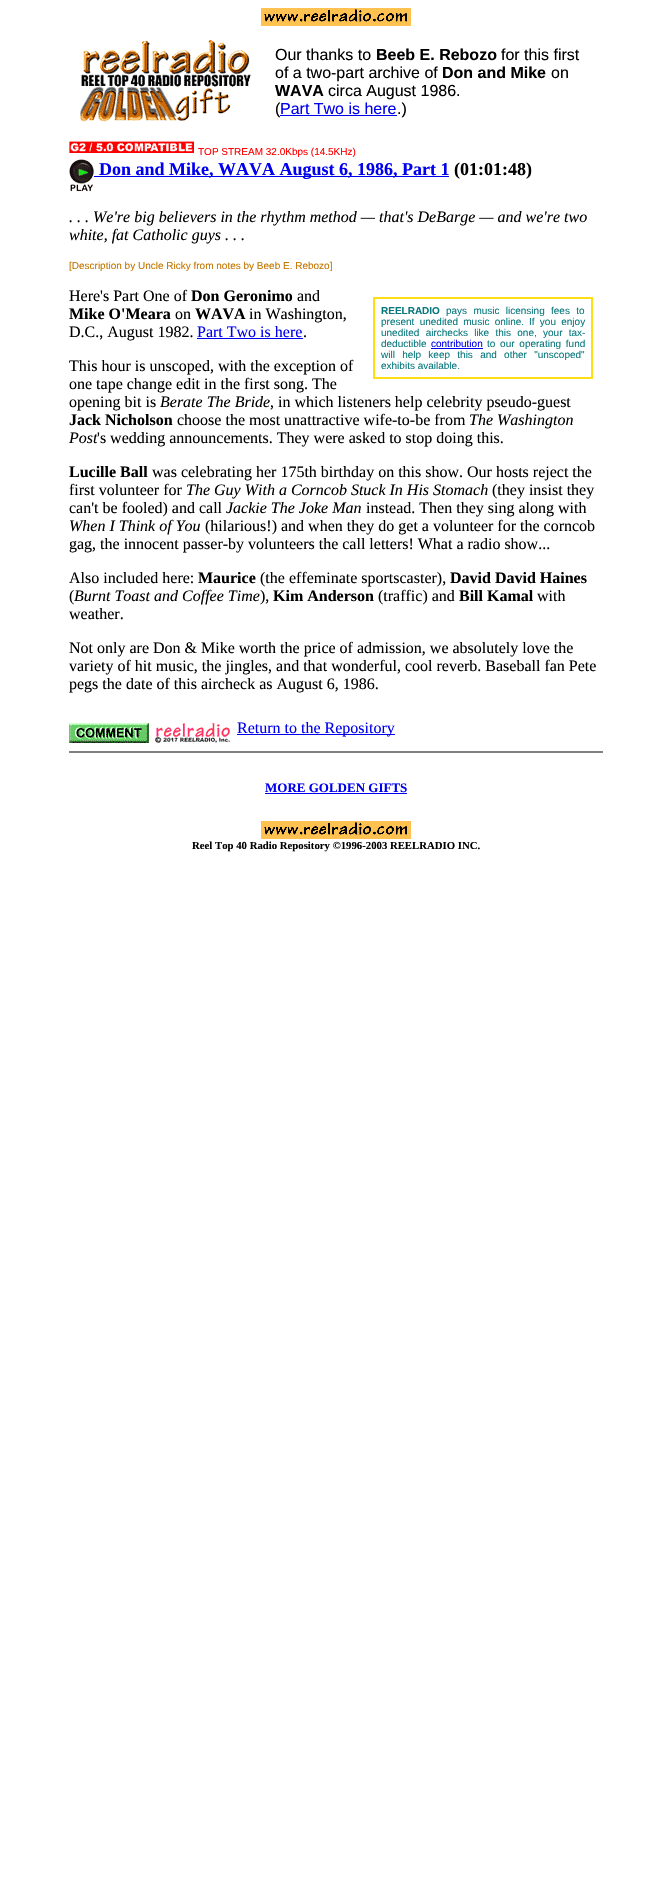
#include "include/core/SkBlurTypes.h"
#include "include/core/SkCanvas.h"
#include "include/core/SkData.h"
#include "include/core/SkFont.h"
#include "include/core/SkFontMgr.h"
#include "include/core/SkImage.h"
#include "include/core/SkMaskFilter.h"
#include "include/core/SkPaint.h"
#include "include/core/SkPathBuilder.h"
#include "include/core/SkTextBlob.h"
#include "include/effects/SkDashPathEffect.h"
#include "include/effects/SkGradientShader.h"
#include "include/utils/SkParsePath.h"

extern sk_sp<SkFontMgr> fontMgr;

void draw(SkCanvas* canvas) {
    SkPaint p;
    p.setAntiAlias(true);
    auto font = [&](const char* family, int weight, float size, bool italic = false) {
        SkFontStyle style(weight, SkFontStyle::kNormal_Width,
            italic ? SkFontStyle::kItalic_Slant : SkFontStyle::kUpright_Slant);
        SkFont result(fontMgr->matchFamilyStyle(family, style), size);
        result.setSubpixel(true);
        return result;
    };
    auto drawTracked = [&](const char* s, float x, float y, const SkFont& font, const SkPaint& ink, float letter, float word) {
        std::vector<SkGlyphID> glyphs(font.countText(s, strlen(s), SkTextEncoding::kUTF8));
        std::vector<float> xs(glyphs.size());
        font.textToGlyphs(s, strlen(s), SkTextEncoding::kUTF8, glyphs);
        font.getXPos(glyphs, xs, x);
        float extra = 0;
        for (size_t i = 0; i < glyphs.size(); i++) {
            xs[i] += extra;
            extra += letter + word * (glyphs[i] == font.unicharToGlyph(' '));
        }
        canvas->drawTextBlob(SkTextBlob::MakeFromPosHGlyphs(glyphs, xs, y, font), 0, 0, ink);
    };
    auto drawPhoto = [&](const char* path, float l, float t, float r, float b) {
        auto image = SkImages::DeferredFromEncodedData(SkData::MakeFromFileName(path));
        canvas->drawImageRect(image, SkRect::MakeLTRB(l, t, r, b), SkSamplingOptions());
    };
    canvas->clear(0xFFFFFFFF);
    drawPhoto("media/1.png", 261, 8, 411, 26);
    drawPhoto("media/2.png", 80, 40, 251, 122);
    auto font1 = font("Liberation Sans", 400, 16);
    p.setColor(0xFF000000);
    canvas->drawString("Our thanks to", 275, 60, font1, p);
    auto font2 = font("Liberation Sans", 700, 16);
    canvas->drawString("Beeb E. Rebozo", 376, 60, font2, p);
    canvas->drawString("for this first", 501, 60, font1, p);
    canvas->drawString("of a two-part archive of", 275, 78, font1, p);
    canvas->drawString("Don and Mike", 442, 78, font2, p);
    canvas->drawString("on", 551, 78, font1, p);
    canvas->drawString("WAVA", 275, 96, font2, p);
    canvas->drawString("circa August 1986.", 328, 96, font1, p);
    canvas->drawString("(", 275, 114, font1, p);
    p.setColor(0xFF0000EE);
    canvas->drawRect(SkRect::MakeLTRB(280, 115, 397, 116), p);
    canvas->drawString("Part Two is here", 280, 114, font1, p);
    p.setColor(0xFF000000);
    canvas->drawString(".)", 397, 114, font1, p);
    drawPhoto("media/3.png", 69, 141, 194, 153);
    auto font3 = font("Liberation Sans", 400, 10);
    p.setColor(0xFFFF0000);
    canvas->drawString("TOP STREAM 32.0Kbps (14.5KHz)", 198, 155, font3, p);
    drawPhoto("media/4.png", 69, 159, 94, 192);
    p.setColor(0xFF0000EE);
    canvas->drawRect(SkRect::MakeLTRB(94, 176, 449, 177), p);
    auto font4 = font("Liberation Serif", 700, 18);
    canvas->drawString("Don and Mike, WAVA August 6, 1986, Part 1", 99, 175, font4, p);
    p.setColor(0xFF000000);
    canvas->drawString("(01:01:48)", 454, 175, font4, p);
    auto font5 = font("Liberation Serif", 400, 16, true);
    canvas->drawString(". . . We're big believers in the rhythm method — that's DeBarge — and we're two", 69, 222, font5, p);
    canvas->drawString("white, fat Catholic guys . . .", 69, 240, font5, p);
    p.setColor(0xFFC37600);
    canvas->drawString("[Description by Uncle Ricky from notes by Beeb E. Rebozo]", 69, 269, font3, p);
    auto font6 = font("Liberation Serif", 400, 16);
    p.setColor(0xFF000000);
    canvas->drawString("Here's Part One of", 69, 301, font6, p);
    auto font7 = font("Liberation Serif", 700, 16);
    canvas->drawString("Don Geronimo", 191, 301, font7, p);
    canvas->drawString("and", 297, 301, font6, p);
    canvas->drawString("Mike O'Meara", 69, 319, font7, p);
    canvas->drawString("on", 175, 319, font6, p);
    canvas->drawString("WAVA", 195, 319, font7, p);
    canvas->drawString("in Washington,", 249, 319, font6, p);
    p.setStyle(SkPaint::kStroke_Style);
    p.setStrokeWidth(2);
    p.setColor(0xFFFFDF13);
    canvas->drawRect(SkRect::MakeLTRB(374, 298, 592, 378), p);
    auto font8 = font("Liberation Sans", 700, 10);
    p.setStyle(SkPaint::kFill_Style);
    p.setColor(0xFF09797E);
    canvas->drawString("REELRADIO", 381, 314, font8, p);
    drawTracked("pays music licensing fees to", 446, 314, font3, p, 0, 3.5f);
    drawTracked("present unedited music online.", 381, 325, font3, p, 0, 2.5f);
    drawTracked("If you enjoy", 529, 325, font3, p, 0, 2.5f);
    drawTracked("unedited airchecks like this one, your tax-", 381, 336, font3, p, 0, 3.5f);
    canvas->drawString("deductible", 381, 347, font3, p);
    p.setColor(0xFF0000EE);
    canvas->drawString("contribution", 431, 347, font3, p);
    canvas->drawRect(SkRect::MakeLTRB(431, 348, 483, 349), p);
    p.setColor(0xFF09797E);
    drawTracked("to our operating fund", 487, 347, font3, p, 0, 2);
    drawTracked("will help keep this and other \"unscoped\"", 381, 358, font3, p, 0, 4.5f);
    canvas->drawString("exhibits available.", 381, 369, font3, p);
    p.setColor(0xFF000000);
    canvas->drawString("D.C., August 1982.", 69, 337, font6, p);
    p.setColor(0xFF0000EE);
    canvas->drawString("Part Two is here", 197, 337, font6, p);
    canvas->drawRect(SkRect::MakeLTRB(197, 338, 303, 339), p);
    p.setColor(0xFF000000);
    {
        const struct { const char* s; float x, y; } items[] = {
            {".", 303, 337},
            {"This hour is unscoped, with the exception of", 69, 371},
            {"one tape change edit in the first song. The", 69, 389},
            {"opening bit is", 69, 407},
        };
        for (auto [s, x, y] : items) {
            canvas->drawString(s, x, y, font6, p);
        }
    }
    canvas->drawString("Berate The Bride", 160, 407, font5, p);
    canvas->drawString(", in which listeners help celebrity pseudo-guest", 270, 407, font6, p);
    canvas->drawString("Jack Nicholson", 69, 425, font7, p);
    canvas->drawString("choose the most unattractive wife-to-be from", 177, 425, font6, p);
    canvas->drawString("The Washington", 469, 425, font5, p);
    canvas->drawString("Post", 69, 443, font5, p);
    canvas->drawString("'s wedding announcements. They were asked to stop doing this.", 97, 443, font6, p);
    canvas->drawString("Lucille Ball", 69, 477, font7, p);
    canvas->drawString("was celebrating her 175th birthday on this show. Our hosts reject the", 152, 477, font6, p);
    canvas->drawString("first volunteer for", 69, 495, font6, p);
    canvas->drawString("The Guy With a Corncob Stuck In His Stomach", 186, 495, font5, p);
    canvas->drawString("(they insist they", 492, 495, font6, p);
    canvas->drawString("can't be fooled) and call", 69, 513, font6, p);
    canvas->drawString("Jackie The Joke Man", 226, 513, font5, p);
    canvas->drawString("instead. Then they sing along with", 366, 513, font6, p);
    canvas->drawString("When I Think of You", 69, 531, font5, p);
    {
        const struct { const char* s; float x, y; } items[] = {
            {"(hilarious!) and when they do get a volunteer for the corncob", 205, 531},
            {"gag, the innocent passer-by volunteers the call letters! What a radio show...", 69, 549},
            {"Also included here:", 69, 583},
        };
        for (auto [s, x, y] : items) {
            canvas->drawString(s, x, y, font6, p);
        }
    }
    canvas->drawString("Maurice", 198, 583, font7, p);
    canvas->drawString("(the effeminate sportscaster),", 260, 583, font6, p);
    canvas->drawString("David David Haines", 450, 583, font7, p);
    canvas->drawString("(", 69, 601, font6, p);
    canvas->drawString("Burnt Toast and Coffee Time", 74, 601, font5, p);
    canvas->drawString("),", 260, 601, font6, p);
    canvas->drawString("Kim Anderson", 273, 601, font7, p);
    canvas->drawString("(traffic) and", 378, 601, font6, p);
    canvas->drawString("Bill Kamal", 459, 601, font7, p);
    {
        const struct { const char* s; float x, y; } items[] = {
            {"with", 537, 601},
            {"weather.", 69, 619},
            {"Not only are Don & Mike worth the price of admission, we absolutely love the", 69, 653},
            {"variety of hit music, the jingles, and that wonderful, cool reverb. Baseball fan Pete", 69, 671},
            {"pegs the date of this aircheck as August 6, 1986.", 69, 689},
        };
        for (auto [s, x, y] : items) {
            canvas->drawString(s, x, y, font6, p);
        }
    }
    drawPhoto("media/5.png", 69, 723, 149, 743);
    drawPhoto("media/6.png", 155, 723, 230, 743);
    p.setColor(0xFF0000EE);
    canvas->drawRect(SkRect::MakeLTRB(237, 734, 395, 735), p);
    canvas->drawString("Return to the Repository", 237, 733, font6, p);
    p.setColor(0xFF808080);
    canvas->drawRect(SkRect::MakeLTRB(69, 751, 603, 753), p);
    auto font9 = font("Liberation Serif", 700, 13);
    p.setColor(0xFF0000EE);
    canvas->drawString("MORE GOLDEN GIFTS", 265, 792, font9, p);
    canvas->drawRect(SkRect::MakeLTRB(265, 793, 407, 794), p);
    drawPhoto("media/1.png", 261, 821, 411, 839);
    auto font10 = font("Liberation Serif", 700, 10.75f);
    p.setColor(0xFF000000);
    canvas->drawString("Reel Top 40 Radio Repository ©1996-2003 REELRADIO INC.", 192, 849, font10, p);
}
